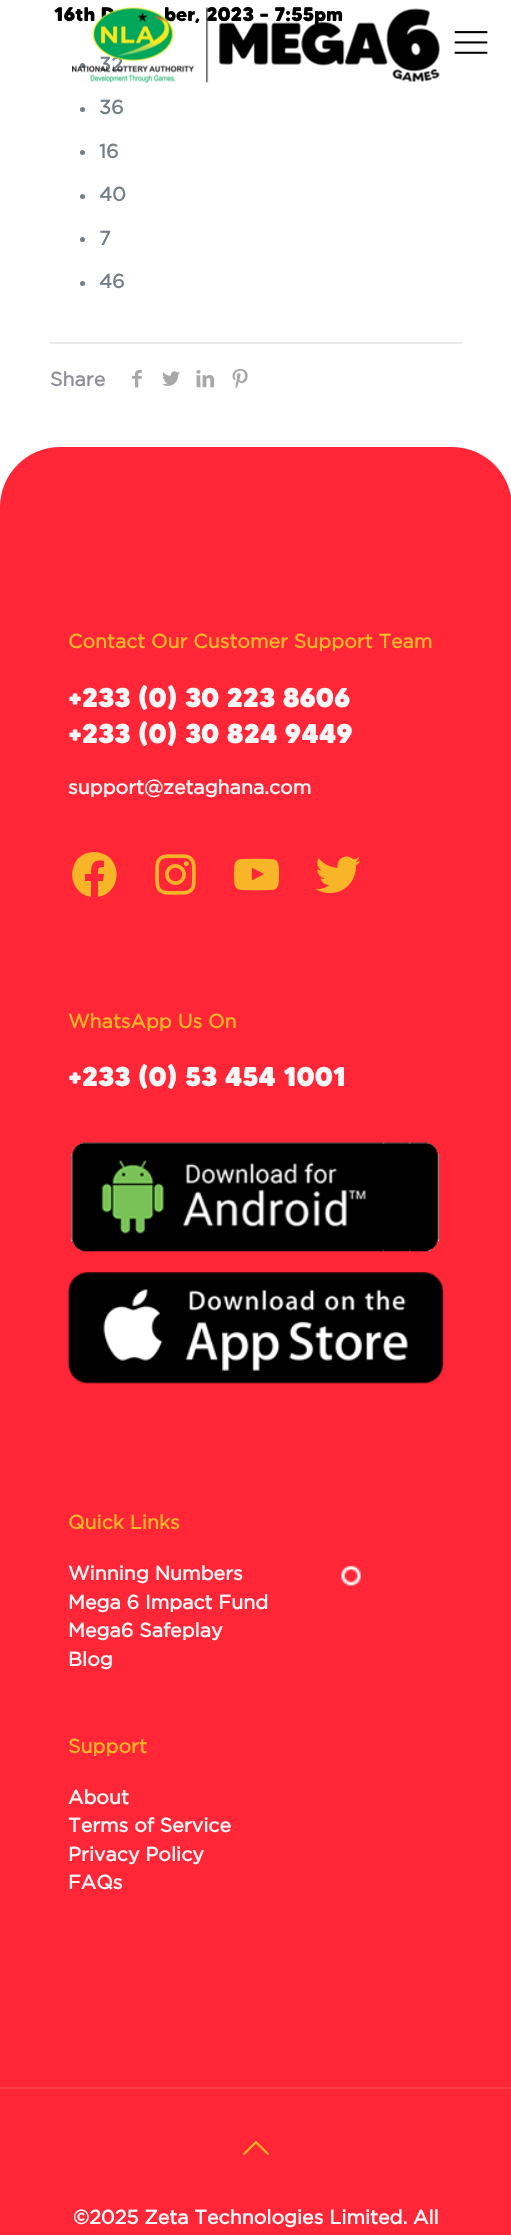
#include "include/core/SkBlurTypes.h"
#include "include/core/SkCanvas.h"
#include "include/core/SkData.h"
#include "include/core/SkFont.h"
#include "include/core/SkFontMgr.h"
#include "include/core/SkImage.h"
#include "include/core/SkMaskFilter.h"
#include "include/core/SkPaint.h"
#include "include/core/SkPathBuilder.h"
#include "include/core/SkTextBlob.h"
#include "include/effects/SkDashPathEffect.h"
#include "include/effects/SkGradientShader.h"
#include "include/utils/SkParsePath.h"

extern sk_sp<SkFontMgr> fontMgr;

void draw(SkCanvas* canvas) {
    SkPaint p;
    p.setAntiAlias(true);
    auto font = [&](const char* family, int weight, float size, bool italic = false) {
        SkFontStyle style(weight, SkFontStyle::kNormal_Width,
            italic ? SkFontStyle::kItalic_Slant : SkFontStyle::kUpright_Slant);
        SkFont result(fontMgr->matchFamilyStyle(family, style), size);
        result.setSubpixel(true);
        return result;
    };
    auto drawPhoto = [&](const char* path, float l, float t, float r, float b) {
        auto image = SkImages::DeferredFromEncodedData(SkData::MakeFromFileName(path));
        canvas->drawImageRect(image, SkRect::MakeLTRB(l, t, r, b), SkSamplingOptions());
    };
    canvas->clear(0xFFFFFFFF);
    auto font1 = font("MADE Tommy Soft", 800, 19.5f);
    p.setColor(0xFF000000);
    canvas->drawString("16th D", 54, 21, font1, p);
    canvas->drawString("ber, 2023 – 7:55pm", 164, 21, font1, p);
    p.setColor(0xFF737E86);
    canvas->drawCircle(82.5f, 65.5f, 2.5f, p);
    auto font2 = font("Gotham", 700, 19.5f);
    canvas->drawString("32", 99, 71, font2, p);
    canvas->drawCircle(82.5f, 109.5f, 2.5f, p);
    canvas->drawString("36", 99, 114, font2, p);
    canvas->drawCircle(82.5f, 152.5f, 2.5f, p);
    canvas->drawString("16", 99, 158, font2, p);
    canvas->drawCircle(82.5f, 196.5f, 2.5f, p);
    canvas->drawString("40", 99, 201, font2, p);
    canvas->drawCircle(82.5f, 239.5f, 2.5f, p);
    canvas->drawString("7", 99, 245, font2, p);
    canvas->drawCircle(82.5f, 283.5f, 2.5f, p);
    canvas->drawString("46", 99, 288, font2, p);
    p.setColor(0xFFEBEBEB);
    canvas->drawRect(SkRect::MakeLTRB(50, 342, 462, 344), p);
    p.setColor(0xFF8E8F9B);
    canvas->drawString("Share", 50, 386, font2, p);
    drawPhoto("media/1.png", 132, 369, 142, 388);
    drawPhoto("media/2.png", 162, 371, 180, 386);
    drawPhoto("media/3.png", 196, 370, 215, 388);
    drawPhoto("media/4.png", 232, 368, 248, 389);
    drawPhoto("media/5.png", 72, 7, 440, 83);
    drawPhoto("media/6.png", 454, 31, 488, 54);
    p.setColor(0xFFFF2737);
    canvas->drawPath(SkPathBuilder().moveTo(60, 447).lineTo(452, 447).cubicTo(485, 447, 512, 474, 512, 507).lineTo(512, 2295).lineTo(0, 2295).lineTo(0, 507).cubicTo(0, 474, 27, 447, 60, 447).close().detach(), p);
    drawPhoto("media/7.png", 341, 1565, 361, 1586);
    p.setColor(0xFFF8B528);
    canvas->drawString("Contact Our Customer Support Team", 68, 648, font2, p);
    auto font3 = font("MADE Tommy Soft", 800, 27);
    p.setColor(0xFFF7F7F7);
    canvas->drawString("+233 (0) 30 223 8606", 68, 707, font3, p);
    canvas->drawString("+233 (0) 30 824 9449", 68, 743, font3, p);
    canvas->drawString("support@zetaghana.com", 68, 794, font2, p);
    p.setColor(0xFFF8B528);
    canvas->drawPath(SkPathBuilder().moveTo(94, 852).cubicTo(67, 852, 64, 892, 91, 897).lineTo(91, 881).lineTo(85, 881).lineTo(85, 874).lineTo(91, 874).cubicTo(91, 864, 93, 859, 104, 861).lineTo(104, 867).cubicTo(98, 867, 98, 868, 98, 874).lineTo(104, 874).lineTo(103, 881).lineTo(98, 881).lineTo(98, 897).cubicTo(125, 892, 122, 852, 94, 852).close().detach(), p);
    drawPhoto("media/8.png", 155, 854, 196, 895);
    drawPhoto("media/9.png", 234, 858, 279, 891);
    drawPhoto("media/10.png", 315, 856, 361, 894);
    canvas->drawString("WhatsApp Us On", 68, 1028, font2, p);
    p.setColor(0xFFF7F7F7);
    canvas->drawString("+233 (0) 53 454 1001", 68, 1086, font3, p);
    drawPhoto("media/11.png", 71, 1142, 440, 1252);
    drawPhoto("media/12.png", 67, 1272, 444, 1384);
    p.setColor(0xFFF8B528);
    canvas->drawString("Quick Links", 68, 1529, font2, p);
    p.setColor(0xFFF7F7F7);
    {
        const struct { const char* s; float x, y; } items[] = {
            {"Winning Numbers", 68, 1580},
            {"Mega 6 Impact Fund", 68, 1609},
            {"Mega6 Safeplay", 68, 1637},
            {"Blog", 68, 1666},
        };
        for (auto [s, x, y] : items) {
            canvas->drawString(s, x, y, font2, p);
        }
    }
    p.setColor(0xFFF8B528);
    canvas->drawString("Support", 68, 1753, font2, p);
    p.setColor(0xFFF7F7F7);
    {
        const struct { const char* s; float x, y; } items[] = {
            {"About", 68, 1804},
            {"Terms of Service", 68, 1832},
            {"Privacy Policy", 68, 1861},
            {"FAQs", 68, 1889},
        };
        for (auto [s, x, y] : items) {
            canvas->drawString(s, x, y, font2, p);
        }
    }
    p.setColor(0xFFFF3D4B);
    canvas->drawRect(SkRect::MakeLTRB(0, 2087, 511, 2089), p);
    drawPhoto("media/13.png", 243, 2141, 269, 2155);
    p.setColor(0xFFFFFFFF);
    canvas->drawString("©2025 Zeta Technologies Limited. All", 73, 2224, font2, p);
}
